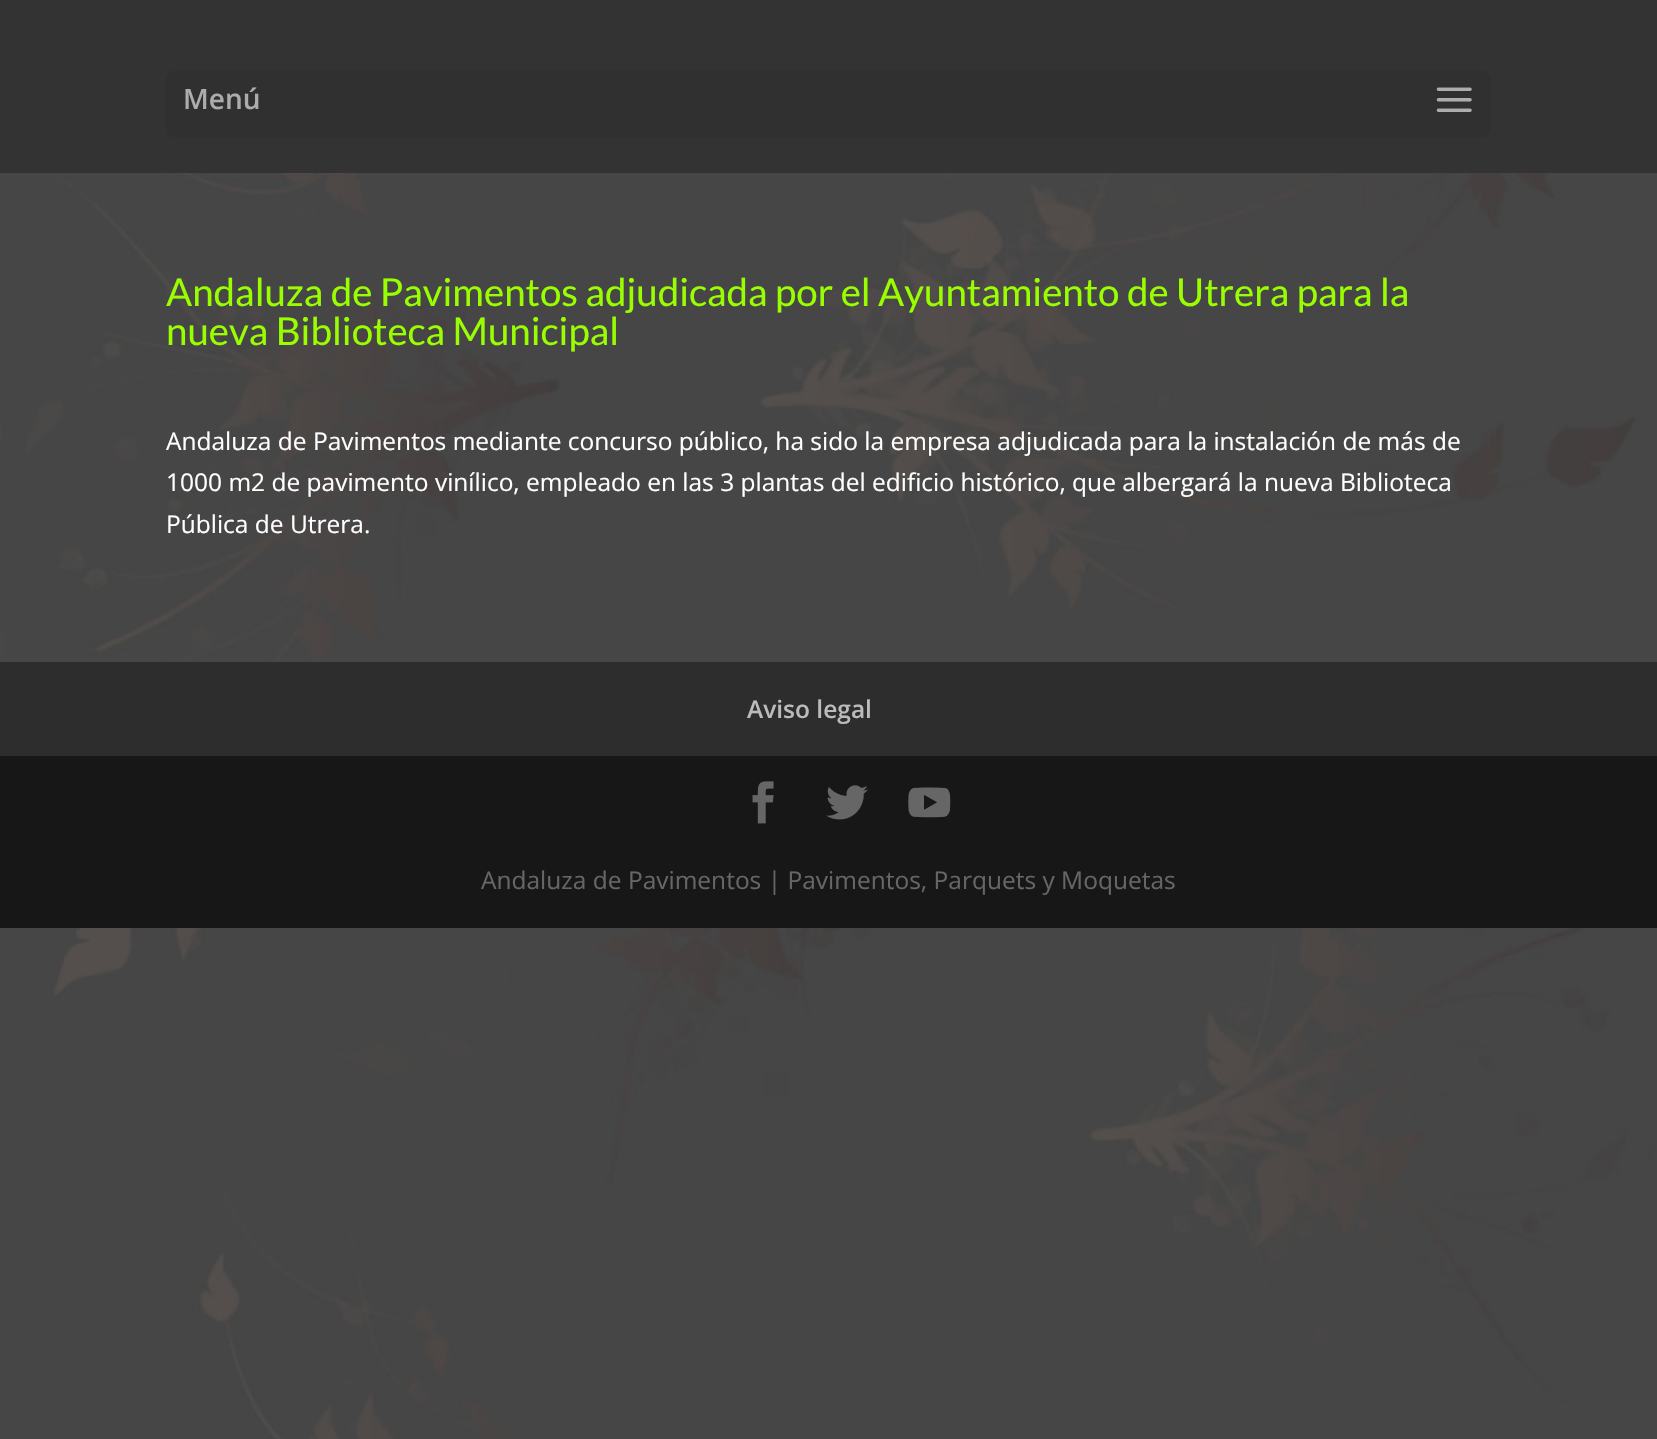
#include "include/core/SkBlurTypes.h"
#include "include/core/SkCanvas.h"
#include "include/core/SkData.h"
#include "include/core/SkFont.h"
#include "include/core/SkFontMgr.h"
#include "include/core/SkImage.h"
#include "include/core/SkMaskFilter.h"
#include "include/core/SkPaint.h"
#include "include/core/SkPathBuilder.h"
#include "include/core/SkTextBlob.h"
#include "include/effects/SkDashPathEffect.h"
#include "include/effects/SkGradientShader.h"
#include "include/utils/SkParsePath.h"

extern sk_sp<SkFontMgr> fontMgr;

void draw(SkCanvas* canvas) {
    SkPaint p;
    p.setAntiAlias(true);
    auto font = [&](const char* family, int weight, float size, bool italic = false) {
        SkFontStyle style(weight, SkFontStyle::kNormal_Width,
            italic ? SkFontStyle::kItalic_Slant : SkFontStyle::kUpright_Slant);
        SkFont result(fontMgr->matchFamilyStyle(family, style), size);
        result.setSubpixel(true);
        return result;
    };
    auto drawPhoto = [&](const char* path, float l, float t, float r, float b) {
        auto image = SkImages::DeferredFromEncodedData(SkData::MakeFromFileName(path));
        canvas->drawImageRect(image, SkRect::MakeLTRB(l, t, r, b), SkSamplingOptions());
    };
    canvas->clear(0xFFFFFFFF);
    drawPhoto("media/1.png", 0, 173, 1657, 1439);
    p.setColor(0xFF333333);
    canvas->drawRect(SkRect::MakeLTRB(0, 0, 1657, 173), p);
    p.setColor(0xFF303030);
    canvas->drawRoundRect(SkRect::MakeLTRB(166, 70, 1491, 138), 9, 9, p);
    auto font1 = font("Open Sans", 600, 28);
    p.setColor(0xFFACACAC);
    canvas->drawString("Menú", 183, 109, font1, p);
    drawPhoto("media/2.png", 1436, 87, 1472, 112);
    auto font2 = font("Lato", 400, 38.5f);
    p.setColor(0xFF99FF00);
    canvas->drawString("Andaluza de Pavimentos adjudicada por el Ayuntamiento de Utrera para la", 166, 306, font2, p);
    canvas->drawString("nueva Biblioteca Municipal", 166, 345, font2, p);
    auto font3 = font("Open Sans", 400, 24.5f);
    p.setColor(0xFFFFFFFF);
    {
        const struct { const char* s; float x, y; } items[] = {
            {"Andaluza de Pavimentos mediante concurso público, ha sido la empresa adjudicada para la instalación de más de", 166, 450},
            {"1000 m2 de pavimento vinílico, empleado en las 3 plantas del edificio histórico, que albergará la nueva Biblioteca", 166, 491},
            {"Pública de Utrera.", 166, 533},
        };
        for (auto [s, x, y] : items) {
            canvas->drawString(s, x, y, font3, p);
        }
    }
    p.setColor(0xFF2D2D2D);
    canvas->drawRect(SkRect::MakeLTRB(0, 662, 1657, 756), p);
    auto font4 = font("Open Sans", 600, 24.5f);
    p.setColor(0xFFBBBBBB);
    canvas->drawString("Aviso legal", 747, 718, font4, p);
    p.setColor(0xFF171717);
    canvas->drawRect(SkRect::MakeLTRB(0, 756, 1657, 928), p);
    drawPhoto("media/3.png", 752, 781, 774, 824);
    drawPhoto("media/4.png", 826, 785, 868, 820);
    drawPhoto("media/5.png", 908, 787, 951, 818);
    p.setColor(0xFF666666);
    canvas->drawString("Andaluza de Pavimentos | Pavimentos, Parquets y Moquetas", 481, 889, font3, p);
}
